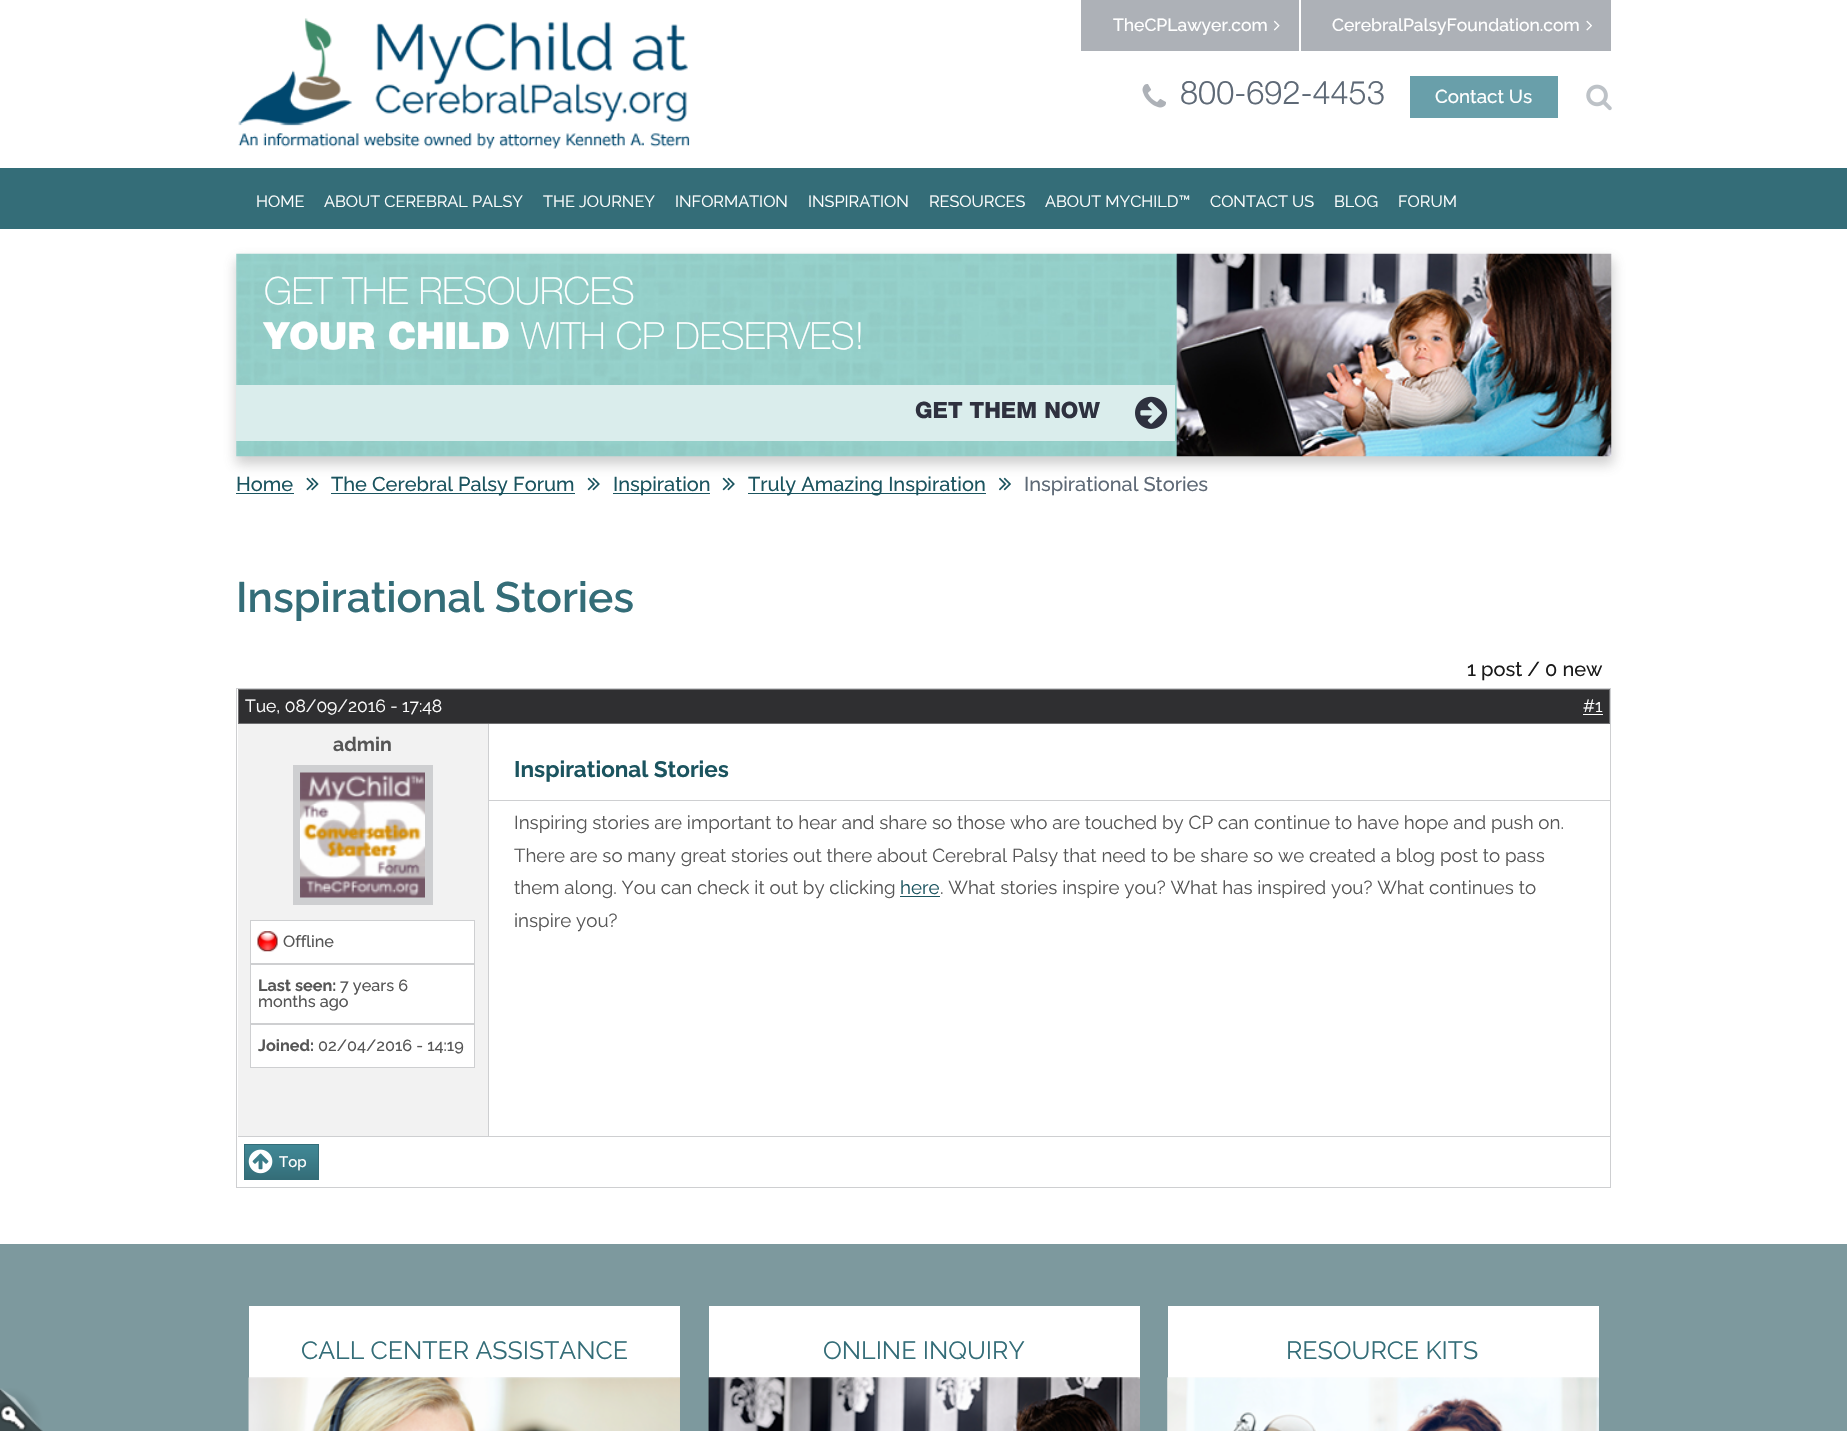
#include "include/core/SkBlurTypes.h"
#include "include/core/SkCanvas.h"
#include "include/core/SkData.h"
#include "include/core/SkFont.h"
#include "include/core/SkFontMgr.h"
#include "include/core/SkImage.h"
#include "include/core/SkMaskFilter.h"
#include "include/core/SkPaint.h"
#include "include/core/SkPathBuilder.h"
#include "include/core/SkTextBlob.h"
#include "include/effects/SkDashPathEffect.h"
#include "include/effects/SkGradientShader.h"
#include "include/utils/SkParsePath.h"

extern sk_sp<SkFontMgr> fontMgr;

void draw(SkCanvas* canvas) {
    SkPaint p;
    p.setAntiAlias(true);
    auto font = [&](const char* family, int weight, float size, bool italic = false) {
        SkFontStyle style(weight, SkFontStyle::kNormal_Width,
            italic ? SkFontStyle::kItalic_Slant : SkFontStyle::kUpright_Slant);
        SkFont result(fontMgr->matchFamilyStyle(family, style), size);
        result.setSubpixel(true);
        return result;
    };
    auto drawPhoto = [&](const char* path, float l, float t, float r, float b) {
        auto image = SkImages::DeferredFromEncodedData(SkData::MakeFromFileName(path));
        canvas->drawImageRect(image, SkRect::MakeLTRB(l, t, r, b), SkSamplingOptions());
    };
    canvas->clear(0xFFFFFFFF);
    drawPhoto("media/1.png", 238, 18, 690, 149);
    p.setColor(0xFFADB1B7);
    canvas->drawRect(SkRect::MakeLTRB(1081, 0, 1299, 51), p);
    auto font1 = font("Raleway", 500, 17.5f);
    p.setColor(0xFFFFFFFF);
    canvas->drawString("TheCPLawyer.com", 1113, 31, font1, p);
    drawPhoto("media/2.png", 1274, 20, 1280, 31);
    p.setColor(0xFFADB1B7);
    canvas->drawRect(SkRect::MakeLTRB(1301, 0, 1611, 51), p);
    p.setColor(0xFFFFFFFF);
    canvas->drawString("CerebralPalsyFoundation.com", 1332, 31, font1, p);
    drawPhoto("media/3.png", 1586, 20, 1592, 31);
    drawPhoto("media/4.png", 1142, 84, 1166, 108);
    auto font2 = font("Helvetica Neue", 300, 32.5f);
    p.setColor(0xFF5E6976);
    canvas->drawString("800-692-4453", 1180, 104, font2, p);
    p.setColor(0xFF699FAA);
    canvas->drawRect(SkRect::MakeLTRB(1410, 76, 1558, 118), p);
    auto font3 = font("Raleway", 500, 18.75f);
    p.setColor(0xFFFFFFFF);
    canvas->drawString("Contact Us", 1435, 103, font3, p);
    drawPhoto("media/5.png", 1586, 84, 1612, 111);
    p.setColor(0xFF346D78);
    canvas->drawRect(SkRect::MakeLTRB(0, 168, 1847, 229), p);
    auto font4 = font("Raleway", 400, 16.25f);
    p.setColor(0xFFFFFFFF);
    {
        const struct { const char* s; float x, y; } items[] = {
            {"HOME", 256, 207},
            {"ABOUT CEREBRAL PALSY", 324, 207},
            {"THE JOURNEY", 543, 207},
            {"INFORMATION", 675, 207},
            {"INSPIRATION", 808, 207},
            {"RESOURCES", 929, 207},
            {"ABOUT MYCHILD™", 1045, 207},
            {"CONTACT US", 1210, 207},
            {"BLOG", 1334, 207},
            {"FORUM", 1398, 207},
        };
        for (auto [s, x, y] : items) {
            canvas->drawString(s, x, y, font4, p);
        }
    }
    p.setColor(0xE6C8C8C8);
    p.setMaskFilter(SkMaskFilter::MakeBlur(kNormal_SkBlurStyle, 6));
    canvas->drawRect(SkRect::MakeLTRB(236, 260, 1613, 464), p);
    p.setMaskFilter(nullptr);
    drawPhoto("media/6.png", 236, 253, 1612, 457);
    auto font5 = font("Helvetica Neue", 200, 37.5f);
    p.setColor(0xFFFFFFFF);
    canvas->drawString("GET THE RESOURCES", 264, 304, font5, p);
    auto font6 = font("Helvetica Neue", 900, 37.5f);
    canvas->drawString("YOUR CHILD", 264, 349, font6, p);
    canvas->drawString("WITH CP DESERVES!", 521, 349, font5, p);
    p.setColor(0xFFDAEDEC);
    canvas->drawRect(SkRect::MakeLTRB(236, 385, 1175, 441), p);
    auto font7 = font("Helvetica Neue", 700, 22.5f);
    p.setColor(0xFF2E313F);
    canvas->drawString("GET THEM NOW", 915, 418, font7, p);
    drawPhoto("media/7.png", 1135, 396, 1168, 429);
    auto font8 = font("Raleway", 500, 20);
    p.setColor(0xFF1B545F);
    canvas->drawString("Home", 236, 491, font8, p);
    canvas->drawRect(SkRect::MakeLTRB(236, 493, 294, 494), p);
    drawPhoto("media/8.png", 306, 477, 319, 491);
    canvas->drawRect(SkRect::MakeLTRB(331, 493, 575, 494), p);
    canvas->drawString("The Cerebral Palsy Forum", 331, 491, font8, p);
    drawPhoto("media/9.png", 587, 477, 600, 491);
    canvas->drawRect(SkRect::MakeLTRB(613, 493, 710, 494), p);
    canvas->drawString("Inspiration", 613, 491, font8, p);
    drawPhoto("media/9.png", 722, 477, 735, 491);
    canvas->drawRect(SkRect::MakeLTRB(748, 493, 986, 494), p);
    canvas->drawString("Truly Amazing Inspiration", 748, 491, font8, p);
    drawPhoto("media/10.png", 999, 477, 1011, 491);
    p.setColor(0xFF5E6976);
    canvas->drawString("Inspirational Stories", 1024, 491, font8, p);
    auto font9 = font("Raleway", 600, 42.5f);
    p.setColor(0xFF346D78);
    canvas->drawString("Inspirational Stories", 236, 612, font9, p);
    p.setColor(0xFF1B1B1B);
    canvas->drawString("1 post / 0 new", 1467, 676, font8, p);
    p.setStyle(SkPaint::kStroke_Style);
    p.setStrokeWidth(1);
    p.setColor(0xFFCECFD1);
    canvas->drawRect(SkRect::MakeLTRB(236.5f, 688.5f, 1610.5f, 1187.5f), p);
    p.setStyle(SkPaint::kFill_Style);
    p.setColor(0xFF2F2F31);
    canvas->drawRect(SkRect::MakeLTRB(238.5f, 689.5f, 1609.5f, 723.5f), p);
    p.setStyle(SkPaint::kStroke_Style);
    p.setColor(0xFF6F6F71);
    canvas->drawRect(SkRect::MakeLTRB(238.5f, 689.5f, 1609.5f, 723.5f), p);
    auto font10 = font("Raleway", 400, 17.5f);
    p.setStyle(SkPaint::kFill_Style);
    p.setColor(0xFFFFFFFF);
    canvas->drawString("Tue, 08/09/2016 - 17:48", 245, 712, font10, p);
    canvas->drawString("#1", 1583, 712, font10, p);
    canvas->drawRect(SkRect::MakeLTRB(1583, 714, 1603, 715), p);
    p.setColor(0xFFF2F2F2);
    canvas->drawRect(SkRect::MakeLTRB(238, 724, 488, 1136), p);
    auto font11 = font("Raleway", 700, 19.5f);
    p.setColor(0xFF565656);
    canvas->drawString("admin", 333, 751, font11, p);
    p.setColor(0xFFCECFD1);
    canvas->drawRect(SkRect::MakeLTRB(293, 765, 433, 905), p);
    drawPhoto("media/11.png", 300, 772, 425, 898);
    p.setColor(0xFFFFFFFF);
    canvas->drawRect(SkRect::MakeLTRB(251, 921, 474, 963), p);
    drawPhoto("media/12.png", 257, 931, 278, 952);
    p.setStyle(SkPaint::kStroke_Style);
    p.setColor(0xFFCECFD1);
    canvas->drawRect(SkRect::MakeLTRB(250.5f, 920.5f, 474.5f, 963.5f), p);
    auto font12 = font("Raleway", 500, 16.25f);
    p.setStyle(SkPaint::kFill_Style);
    p.setColor(0xFF565656);
    canvas->drawString("Offline", 283, 947, font12, p);
    p.setColor(0xFFFFFFFF);
    canvas->drawRect(SkRect::MakeLTRB(250.5f, 964.5f, 474.5f, 1023.5f), p);
    p.setStyle(SkPaint::kStroke_Style);
    p.setColor(0xFFCECFD1);
    canvas->drawRect(SkRect::MakeLTRB(250.5f, 964.5f, 474.5f, 1023.5f), p);
    auto font13 = font("Raleway", 700, 16.25f);
    p.setStyle(SkPaint::kFill_Style);
    p.setColor(0xFF565656);
    canvas->drawString("Last seen:", 258, 991, font13, p);
    canvas->drawString("7 years 6", 340, 991, font12, p);
    canvas->drawString("months ago", 258, 1007, font12, p);
    p.setColor(0xFFFFFFFF);
    canvas->drawRect(SkRect::MakeLTRB(250.5f, 1024.5f, 474.5f, 1067.5f), p);
    p.setStyle(SkPaint::kStroke_Style);
    p.setColor(0xFFCECFD1);
    canvas->drawRect(SkRect::MakeLTRB(250.5f, 1024.5f, 474.5f, 1067.5f), p);
    p.setStyle(SkPaint::kFill_Style);
    p.setColor(0xFF565656);
    canvas->drawString("Joined:", 258, 1051, font13, p);
    canvas->drawString("02/04/2016 - 14:19", 318, 1051, font12, p);
    p.setColor(0xFFCECFD1);
    canvas->drawRect(SkRect::MakeLTRB(488, 724, 489, 1136), p);
    canvas->drawRect(SkRect::MakeLTRB(489, 800, 1610, 801), p);
    auto font14 = font("Raleway", 700, 22.5f);
    p.setColor(0xFF1B545F);
    canvas->drawString("Inspirational Stories", 514, 777, font14, p);
    auto font15 = font("Raleway", 400, 18.75f);
    p.setColor(0xFF565656);
    {
        const struct { const char* s; float x, y; } items[] = {
            {"Inspiring stories are important to hear and share so those who are touched by CP can continue to have hope and push on.", 514, 829},
            {"There are so many great stories out there about Cerebral Palsy that need to be share so we created a blog post to pass", 514, 862},
            {"them along. You can check it out by clicking", 514, 894},
        };
        for (auto [s, x, y] : items) {
            canvas->drawString(s, x, y, font15, p);
        }
    }
    p.setColor(0xFF1B545F);
    canvas->drawString("here", 900, 894, font15, p);
    canvas->drawRect(SkRect::MakeLTRB(900, 896, 940, 897), p);
    p.setColor(0xFF565656);
    canvas->drawString(". What stories inspire you? What has inspired you? What continues to", 940, 894, font15, p);
    canvas->drawString("inspire you?", 514, 927, font15, p);
    p.setColor(0xFFCECFD1);
    canvas->drawRect(SkRect::MakeLTRB(238, 1136, 1610, 1137), p);
    {
        const SkColor colors[] = {0xFF408795, 0xFF3D818E, 0xFF346D78};
        const float stops[] = {0, 0.3f, 1};
        const SkPoint ends[] = {{281, 1145}, {281, 1179}};
        p.setShader(SkGradientShader::MakeLinear(ends, colors, stops, 3, SkTileMode::kClamp));
        p.setAlpha(255);
    }
    canvas->drawRect(SkRect::MakeLTRB(245, 1145, 318, 1179), p);
    p.setStyle(SkPaint::kStroke_Style);
    p.setShader(nullptr);
    p.setColor(0xFF346D78);
    canvas->drawRect(SkRect::MakeLTRB(244.5f, 1144.5f, 318.5f, 1179.5f), p);
    drawPhoto("media/13.png", 248, 1149, 273, 1174);
    auto font16 = font("Raleway", 500, 15);
    p.setStyle(SkPaint::kFill_Style);
    p.setColor(0xFFFFFFFF);
    canvas->drawString("Top", 279, 1167, font16, p);
    p.setColor(0xFF7D999E);
    canvas->drawRect(SkRect::MakeLTRB(0, 1244, 1847, 1431), p);
    p.setColor(0xFFFFFFFF);
    canvas->drawRect(SkRect::MakeLTRB(249, 1306, 680, 1378), p);
    auto font17 = font("Raleway", 400, 25);
    p.setColor(0xFF346D78);
    canvas->drawString("CALL CENTER ASSISTANCE", 301, 1359, font17, p);
    drawPhoto("media/14.png", 248, 1377, 680, 1431);
    drawPhoto("media/15.png", 248, 1377, 680, 1431);
    p.setColor(0xFFFFFFFF);
    canvas->drawRect(SkRect::MakeLTRB(709, 1306, 1140, 1378), p);
    p.setColor(0xFF346D78);
    canvas->drawString("ONLINE INQUIRY", 823, 1359, font17, p);
    drawPhoto("media/16.png", 708, 1377, 1140, 1431);
    drawPhoto("media/17.png", 708, 1377, 1140, 1431);
    p.setColor(0xFFFFFFFF);
    canvas->drawRect(SkRect::MakeLTRB(1168, 1306, 1599, 1378), p);
    p.setColor(0xFF346D78);
    canvas->drawString("RESOURCE KITS", 1286, 1359, font17, p);
    drawPhoto("media/18.png", 1167, 1377, 1599, 1431);
    drawPhoto("media/19.png", 1167, 1377, 1599, 1431);
    drawPhoto("media/20.png", 0, 1388, 43, 1431);
}
